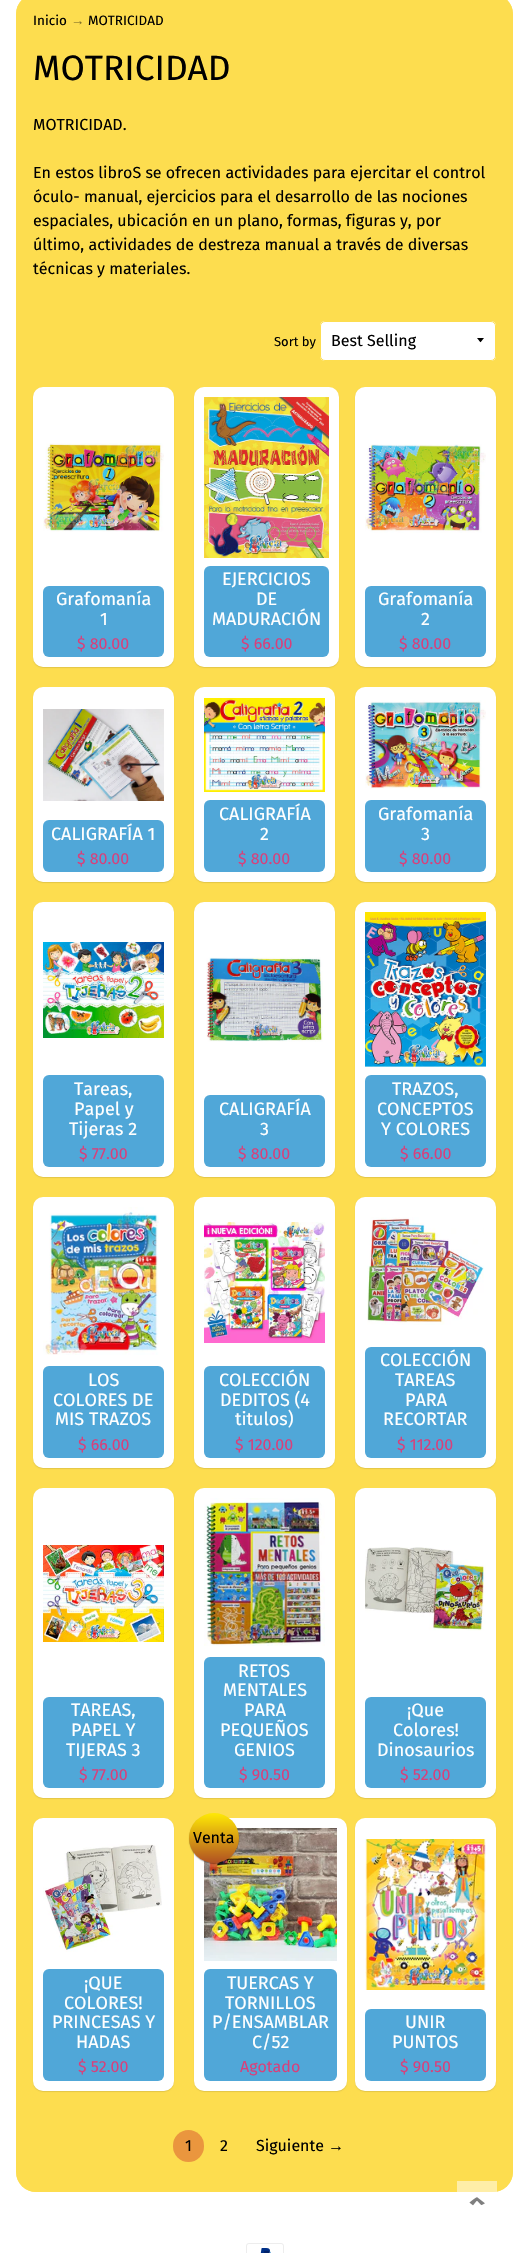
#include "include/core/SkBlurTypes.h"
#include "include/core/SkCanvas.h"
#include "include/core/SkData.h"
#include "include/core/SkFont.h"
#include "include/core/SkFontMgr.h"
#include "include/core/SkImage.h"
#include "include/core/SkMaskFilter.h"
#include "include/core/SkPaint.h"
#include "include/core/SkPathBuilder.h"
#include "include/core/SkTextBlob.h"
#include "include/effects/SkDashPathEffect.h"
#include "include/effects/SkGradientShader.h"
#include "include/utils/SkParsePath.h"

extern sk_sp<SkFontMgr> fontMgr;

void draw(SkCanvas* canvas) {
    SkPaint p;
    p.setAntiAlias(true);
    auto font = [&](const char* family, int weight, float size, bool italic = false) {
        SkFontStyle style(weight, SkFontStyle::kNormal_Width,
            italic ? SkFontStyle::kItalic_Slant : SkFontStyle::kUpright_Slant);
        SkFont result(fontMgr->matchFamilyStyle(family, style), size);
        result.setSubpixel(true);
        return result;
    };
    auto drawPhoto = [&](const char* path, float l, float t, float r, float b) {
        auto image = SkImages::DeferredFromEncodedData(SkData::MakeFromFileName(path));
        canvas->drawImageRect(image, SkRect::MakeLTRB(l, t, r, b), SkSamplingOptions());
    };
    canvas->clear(0xFFFFFFFF);
    p.setColor(0xFFFDDD4F);
    canvas->drawRoundRect(SkRect::MakeLTRB(16, -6, 513, 2192), 20, 20, p);
    p.setStyle(SkPaint::kStroke_Style);
    p.setStrokeWidth(1);
    p.setColor(0xB3FDDD4F);
    canvas->drawRoundRect(SkRect::MakeLTRB(16.5f, -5.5f, 512.5f, 2191.5f), 19.5f, 19.5f, p);
    auto font1 = font("Fira Sans", 400, 13.5f);
    p.setStyle(SkPaint::kFill_Style);
    p.setColor(0xFF000000);
    canvas->drawString("Inicio", 33, 25, font1, p);
    auto font2 = font("Liberation Sans", 400, 13.5f);
    p.setColor(0xFF7F6F28);
    canvas->drawString("→", 71, 25, font2, p);
    p.setColor(0xFF000000);
    canvas->drawString("MOTRICIDAD", 88, 25, font1, p);
    auto font3 = font("Fira Sans", 400, 35.25f);
    canvas->drawString("MOTRICIDAD", 33, 80, font3, p);
    auto font4 = font("Fira Sans", 400, 16);
    {
        const struct { const char* s; float x, y; } items[] = {
            {"MOTRICIDAD.", 33, 130},
            {"En estos libroS se ofrecen actividades para ejercitar el control", 33, 178},
            {"óculo- manual, ejercicios para el desarrollo de las nociones", 33, 202},
            {"espaciales, ubicación en un plano, formas, figuras y, por", 33, 226},
            {"último, actividades de destreza manual a través de diversas", 33, 250},
            {"técnicas y materiales.", 33, 274},
        };
        for (auto [s, x, y] : items) {
            canvas->drawString(s, x, y, font4, p);
        }
    }
    auto font5 = font("Fira Sans", 400, 13);
    canvas->drawString("Sort by", 274, 346, font5, p);
    p.setColor(0xFFFFFFFF);
    canvas->drawRoundRect(SkRect::MakeLTRB(320, 321, 496, 361), 5, 5, p);
    p.setColor(0xFF000000);
    canvas->drawPath(SkPathBuilder().moveTo(477, 338).cubicTo(481.5f, 343.5f, 479.5f, 343.5f, 484, 338).close().detach(), p);
    p.setStyle(SkPaint::kStroke_Style);
    p.setColor(0xFFFDDD4F);
    canvas->drawRoundRect(SkRect::MakeLTRB(320.5f, 321.5f, 495.5f, 360.5f), 4.5f, 4.5f, p);
    p.setStyle(SkPaint::kFill_Style);
    p.setColor(0xFF000000);
    canvas->drawString("Best Selling", 331, 346, font4, p);
    p.setColor(0x1A000000);
    p.setMaskFilter(SkMaskFilter::MakeBlur(kNormal_SkBlurStyle, 0.5f));
    canvas->drawRoundRect(SkRect::MakeLTRB(33, 388, 174, 668), 10, 10, p);
    p.setMaskFilter(nullptr);
    p.setColor(0xFFFFFFFF);
    canvas->drawRoundRect(SkRect::MakeLTRB(33, 387, 174, 667), 10, 10, p);
    drawPhoto("media/1.png", 43, 443, 164, 532);
    p.setColor(0xFF50A7D8);
    canvas->drawRoundRect(SkRect::MakeLTRB(43, 586, 164, 657), 6, 6, p);
    auto font6 = font("Fira Sans", 400, 18);
    p.setColor(0xFFFFFFFF);
    canvas->drawString("Grafomanía", 56, 605, font6, p);
    canvas->drawString("1", 100, 625, font6, p);
    p.setColor(0xFFD8407B);
    canvas->drawString("$ 80.00", 77, 649, font4, p);
    p.setColor(0x1A000000);
    p.setMaskFilter(SkMaskFilter::MakeBlur(kNormal_SkBlurStyle, 0.5f));
    canvas->drawRoundRect(SkRect::MakeLTRB(194, 388, 339, 668), 10, 10, p);
    p.setMaskFilter(nullptr);
    p.setColor(0xFFFFFFFF);
    canvas->drawRoundRect(SkRect::MakeLTRB(194, 387, 339, 667), 10, 10, p);
    drawPhoto("media/2.png", 204, 397, 329, 558);
    p.setColor(0xFF50A7D8);
    canvas->drawRoundRect(SkRect::MakeLTRB(204, 566, 329, 657), 6, 6, p);
    p.setColor(0xFFFFFFFF);
    {
        const struct { const char* s; float x, y; } items[] = {
            {"EJERCICIOS", 222, 585},
            {"DE", 256, 605},
            {"MADURACIÓN", 212, 625},
        };
        for (auto [s, x, y] : items) {
            canvas->drawString(s, x, y, font6, p);
        }
    }
    p.setColor(0xFFD8407B);
    canvas->drawString("$ 66.00", 241, 649, font4, p);
    p.setColor(0x1A000000);
    p.setMaskFilter(SkMaskFilter::MakeBlur(kNormal_SkBlurStyle, 0.5f));
    canvas->drawRoundRect(SkRect::MakeLTRB(355, 388, 496, 668), 10, 10, p);
    p.setMaskFilter(nullptr);
    p.setColor(0xFFFFFFFF);
    canvas->drawRoundRect(SkRect::MakeLTRB(355, 387, 496, 667), 10, 10, p);
    drawPhoto("media/3.png", 365, 444, 486, 533);
    p.setColor(0xFF50A7D8);
    canvas->drawRoundRect(SkRect::MakeLTRB(365, 586, 486, 657), 6, 6, p);
    p.setColor(0xFFFFFFFF);
    canvas->drawString("Grafomanía", 378, 605, font6, p);
    canvas->drawString("2", 421, 625, font6, p);
    p.setColor(0xFFD8407B);
    canvas->drawString("$ 80.00", 399, 649, font4, p);
    p.setColor(0x1A000000);
    p.setMaskFilter(SkMaskFilter::MakeBlur(kNormal_SkBlurStyle, 0.5f));
    canvas->drawRoundRect(SkRect::MakeLTRB(33, 688, 174, 883), 10, 10, p);
    p.setMaskFilter(nullptr);
    p.setColor(0xFFFFFFFF);
    canvas->drawRoundRect(SkRect::MakeLTRB(33, 687, 174, 882), 10, 10, p);
    drawPhoto("media/4.png", 43, 709, 164, 801);
    p.setColor(0xFF50A7D8);
    canvas->drawRoundRect(SkRect::MakeLTRB(43, 820, 164, 872), 6, 6, p);
    p.setColor(0xFFFFFFFF);
    canvas->drawString("CALIGRAFÍA 1", 51, 840, font6, p);
    p.setColor(0xFFD8407B);
    canvas->drawString("$ 80.00", 77, 864, font4, p);
    p.setColor(0x1A000000);
    p.setMaskFilter(SkMaskFilter::MakeBlur(kNormal_SkBlurStyle, 0.5f));
    canvas->drawRoundRect(SkRect::MakeLTRB(194, 688, 335, 883), 10, 10, p);
    p.setMaskFilter(nullptr);
    p.setColor(0xFFFFFFFF);
    canvas->drawRoundRect(SkRect::MakeLTRB(194, 687, 335, 882), 10, 10, p);
    drawPhoto("media/5.png", 204, 698, 325, 792);
    p.setColor(0xFF50A7D8);
    canvas->drawRoundRect(SkRect::MakeLTRB(204, 800, 325, 872), 6, 6, p);
    p.setColor(0xFFFFFFFF);
    canvas->drawString("CALIGRAFÍA", 219, 820, font6, p);
    canvas->drawString("2", 260, 840, font6, p);
    p.setColor(0xFFD8407B);
    canvas->drawString("$ 80.00", 238, 864, font4, p);
    p.setColor(0x1A000000);
    p.setMaskFilter(SkMaskFilter::MakeBlur(kNormal_SkBlurStyle, 0.5f));
    canvas->drawRoundRect(SkRect::MakeLTRB(355, 688, 496, 883), 10, 10, p);
    p.setMaskFilter(nullptr);
    p.setColor(0xFFFFFFFF);
    canvas->drawRoundRect(SkRect::MakeLTRB(355, 687, 496, 882), 10, 10, p);
    drawPhoto("media/6.png", 365, 700, 486, 789);
    p.setColor(0xFF50A7D8);
    canvas->drawRoundRect(SkRect::MakeLTRB(365, 800, 486, 872), 6, 6, p);
    p.setColor(0xFFFFFFFF);
    canvas->drawString("Grafomanía", 378, 820, font6, p);
    canvas->drawString("3", 421, 840, font6, p);
    p.setColor(0xFFD8407B);
    canvas->drawString("$ 80.00", 399, 864, font4, p);
    p.setColor(0x1A000000);
    p.setMaskFilter(SkMaskFilter::MakeBlur(kNormal_SkBlurStyle, 0.5f));
    canvas->drawRoundRect(SkRect::MakeLTRB(33, 903, 174, 1178), 10, 10, p);
    p.setMaskFilter(nullptr);
    p.setColor(0xFFFFFFFF);
    canvas->drawRoundRect(SkRect::MakeLTRB(33, 902, 174, 1177), 10, 10, p);
    drawPhoto("media/7.png", 43, 942, 164, 1038);
    p.setColor(0xFF50A7D8);
    canvas->drawRoundRect(SkRect::MakeLTRB(43, 1075, 164, 1167), 6, 6, p);
    p.setColor(0xFFFFFFFF);
    {
        const struct { const char* s; float x, y; } items[] = {
            {"Tareas,", 74, 1095},
            {"Papel y", 74, 1115},
            {"Tijeras 2", 69, 1135},
        };
        for (auto [s, x, y] : items) {
            canvas->drawString(s, x, y, font6, p);
        }
    }
    p.setColor(0xFFD8407B);
    canvas->drawString("$ 77.00", 79, 1159, font4, p);
    p.setColor(0x1A000000);
    p.setMaskFilter(SkMaskFilter::MakeBlur(kNormal_SkBlurStyle, 0.5f));
    canvas->drawRoundRect(SkRect::MakeLTRB(194, 903, 335, 1178), 10, 10, p);
    p.setMaskFilter(nullptr);
    p.setColor(0xFFFFFFFF);
    canvas->drawRoundRect(SkRect::MakeLTRB(194, 902, 335, 1177), 10, 10, p);
    drawPhoto("media/8.png", 206, 957, 323, 1042);
    p.setColor(0xFF50A7D8);
    canvas->drawRoundRect(SkRect::MakeLTRB(204, 1095, 325, 1167), 6, 6, p);
    p.setColor(0xFFFFFFFF);
    canvas->drawString("CALIGRAFÍA", 219, 1115, font6, p);
    canvas->drawString("3", 260, 1135, font6, p);
    p.setColor(0xFFD8407B);
    canvas->drawString("$ 80.00", 238, 1159, font4, p);
    p.setColor(0x1A000000);
    p.setMaskFilter(SkMaskFilter::MakeBlur(kNormal_SkBlurStyle, 0.5f));
    canvas->drawRoundRect(SkRect::MakeLTRB(355, 903, 496, 1178), 10, 10, p);
    p.setMaskFilter(nullptr);
    p.setColor(0xFFFFFFFF);
    canvas->drawRoundRect(SkRect::MakeLTRB(355, 902, 496, 1177), 10, 10, p);
    drawPhoto("media/9.png", 365, 912, 486, 1067);
    p.setColor(0xFF50A7D8);
    canvas->drawRoundRect(SkRect::MakeLTRB(365, 1075, 486, 1167), 6, 6, p);
    p.setColor(0xFFFFFFFF);
    {
        const struct { const char* s; float x, y; } items[] = {
            {"TRAZOS,", 392, 1095},
            {"CONCEPTOS", 377, 1115},
            {"Y COLORES", 381, 1135},
        };
        for (auto [s, x, y] : items) {
            canvas->drawString(s, x, y, font6, p);
        }
    }
    p.setColor(0xFFD8407B);
    canvas->drawString("$ 66.00", 400, 1159, font4, p);
    p.setColor(0x1A000000);
    p.setMaskFilter(SkMaskFilter::MakeBlur(kNormal_SkBlurStyle, 0.5f));
    canvas->drawRoundRect(SkRect::MakeLTRB(33, 1198, 174, 1469), 10, 10, p);
    p.setMaskFilter(nullptr);
    p.setColor(0xFFFFFFFF);
    canvas->drawRoundRect(SkRect::MakeLTRB(33, 1197, 174, 1468), 10, 10, p);
    drawPhoto("media/10.png", 43, 1207, 159, 1355);
    p.setColor(0xFF50A7D8);
    canvas->drawRoundRect(SkRect::MakeLTRB(43, 1366, 164, 1458), 6, 6, p);
    p.setColor(0xFFFFFFFF);
    {
        const struct { const char* s; float x, y; } items[] = {
            {"LOS", 88, 1386},
            {"COLORES DE", 53, 1406},
            {"MIS TRAZOS", 55, 1425},
        };
        for (auto [s, x, y] : items) {
            canvas->drawString(s, x, y, font6, p);
        }
    }
    p.setColor(0xFFD8407B);
    canvas->drawString("$ 66.00", 78, 1450, font4, p);
    p.setColor(0x1A000000);
    p.setMaskFilter(SkMaskFilter::MakeBlur(kNormal_SkBlurStyle, 0.5f));
    canvas->drawRoundRect(SkRect::MakeLTRB(194, 1198, 335, 1469), 10, 10, p);
    p.setMaskFilter(nullptr);
    p.setColor(0xFFFFFFFF);
    canvas->drawRoundRect(SkRect::MakeLTRB(194, 1197, 335, 1468), 10, 10, p);
    drawPhoto("media/11.png", 204, 1222, 325, 1343);
    p.setColor(0xFF50A7D8);
    canvas->drawRoundRect(SkRect::MakeLTRB(204, 1366, 325, 1458), 6, 6, p);
    p.setColor(0xFFFFFFFF);
    {
        const struct { const char* s; float x, y; } items[] = {
            {"COLECCIÓN", 219, 1386},
            {"DEDITOS (4", 220, 1406},
            {"titulos)", 235, 1425},
        };
        for (auto [s, x, y] : items) {
            canvas->drawString(s, x, y, font6, p);
        }
    }
    p.setColor(0xFFD8407B);
    canvas->drawString("$ 120.00", 235, 1450, font4, p);
    p.setColor(0x1A000000);
    p.setMaskFilter(SkMaskFilter::MakeBlur(kNormal_SkBlurStyle, 0.5f));
    canvas->drawRoundRect(SkRect::MakeLTRB(355, 1198, 496, 1469), 10, 10, p);
    p.setMaskFilter(nullptr);
    p.setColor(0xFFFFFFFF);
    canvas->drawRoundRect(SkRect::MakeLTRB(355, 1197, 496, 1468), 10, 10, p);
    drawPhoto("media/12.png", 367, 1217, 484, 1325);
    p.setColor(0xFF50A7D8);
    canvas->drawRoundRect(SkRect::MakeLTRB(365, 1347, 486, 1458), 6, 6, p);
    p.setColor(0xFFFFFFFF);
    {
        const struct { const char* s; float x, y; } items[] = {
            {"COLECCIÓN", 380, 1366},
            {"TAREAS", 395, 1386},
            {"PARA", 405, 1406},
            {"RECORTAR", 383, 1425},
        };
        for (auto [s, x, y] : items) {
            canvas->drawString(s, x, y, font6, p);
        }
    }
    p.setColor(0xFFD8407B);
    canvas->drawString("$ 112.00", 397, 1450, font4, p);
    p.setColor(0x1A000000);
    p.setMaskFilter(SkMaskFilter::MakeBlur(kNormal_SkBlurStyle, 0.5f));
    canvas->drawRoundRect(SkRect::MakeLTRB(33, 1489, 174, 1799), 10, 10, p);
    p.setMaskFilter(nullptr);
    p.setColor(0xFFFFFFFF);
    canvas->drawRoundRect(SkRect::MakeLTRB(33, 1488, 174, 1798), 10, 10, p);
    drawPhoto("media/13.png", 43, 1545, 164, 1642);
    p.setColor(0xFF50A7D8);
    canvas->drawRoundRect(SkRect::MakeLTRB(43, 1697, 164, 1788), 6, 6, p);
    p.setColor(0xFFFFFFFF);
    {
        const struct { const char* s; float x, y; } items[] = {
            {"TAREAS,", 71, 1716},
            {"PAPEL Y", 71, 1736},
            {"TIJERAS 3", 66, 1756},
        };
        for (auto [s, x, y] : items) {
            canvas->drawString(s, x, y, font6, p);
        }
    }
    p.setColor(0xFFD8407B);
    canvas->drawString("$ 77.00", 79, 1780, font4, p);
    p.setColor(0x1A000000);
    p.setMaskFilter(SkMaskFilter::MakeBlur(kNormal_SkBlurStyle, 0.5f));
    canvas->drawRoundRect(SkRect::MakeLTRB(194, 1489, 335, 1799), 10, 10, p);
    p.setMaskFilter(nullptr);
    p.setColor(0xFFFFFFFF);
    canvas->drawRoundRect(SkRect::MakeLTRB(194, 1488, 335, 1798), 10, 10, p);
    drawPhoto("media/14.png", 204, 1498, 325, 1646);
    p.setColor(0xFF50A7D8);
    canvas->drawRoundRect(SkRect::MakeLTRB(204, 1657, 325, 1788), 6, 6, p);
    p.setColor(0xFFFFFFFF);
    {
        const struct { const char* s; float x, y; } items[] = {
            {"RETOS", 238, 1677},
            {"MENTALES", 223, 1696},
            {"PARA", 244, 1716},
            {"PEQUEÑOS", 220, 1736},
            {"GENIOS", 234, 1756},
        };
        for (auto [s, x, y] : items) {
            canvas->drawString(s, x, y, font6, p);
        }
    }
    p.setColor(0xFFD8407B);
    canvas->drawString("$ 90.50", 239, 1780, font4, p);
    p.setColor(0x1A000000);
    p.setMaskFilter(SkMaskFilter::MakeBlur(kNormal_SkBlurStyle, 0.5f));
    canvas->drawRoundRect(SkRect::MakeLTRB(355, 1489, 496, 1799), 10, 10, p);
    p.setMaskFilter(nullptr);
    p.setColor(0xFFFFFFFF);
    canvas->drawRoundRect(SkRect::MakeLTRB(355, 1488, 496, 1798), 10, 10, p);
    drawPhoto("media/15.png", 365, 1547, 486, 1631);
    p.setColor(0xFF50A7D8);
    canvas->drawRoundRect(SkRect::MakeLTRB(365, 1697, 486, 1788), 6, 6, p);
    p.setColor(0xFFFFFFFF);
    {
        const struct { const char* s; float x, y; } items[] = {
            {"¡Que", 407, 1716},
            {"Colores!", 393, 1736},
            {"Dinosaurios", 377, 1756},
        };
        for (auto [s, x, y] : items) {
            canvas->drawString(s, x, y, font6, p);
        }
    }
    p.setColor(0xFFD8407B);
    canvas->drawString("$ 52.00", 400, 1780, font4, p);
    p.setColor(0x1A000000);
    p.setMaskFilter(SkMaskFilter::MakeBlur(kNormal_SkBlurStyle, 0.5f));
    canvas->drawRoundRect(SkRect::MakeLTRB(33, 1819, 174, 2092), 10, 10, p);
    p.setMaskFilter(nullptr);
    p.setColor(0xFFFFFFFF);
    canvas->drawRoundRect(SkRect::MakeLTRB(33, 1818, 174, 2091), 10, 10, p);
    drawPhoto("media/16.png", 43, 1844, 162, 1952);
    p.setColor(0xFF50A7D8);
    canvas->drawRoundRect(SkRect::MakeLTRB(43, 1969, 164, 2081), 6, 6, p);
    p.setColor(0xFFFFFFFF);
    {
        const struct { const char* s; float x, y; } items[] = {
            {"¡QUE", 84, 1989},
            {"COLORES!", 64, 2009},
            {"PRINCESAS Y", 52, 2028},
            {"HADAS", 76, 2048},
        };
        for (auto [s, x, y] : items) {
            canvas->drawString(s, x, y, font6, p);
        }
    }
    p.setColor(0xFFD8407B);
    canvas->drawString("$ 52.00", 78, 2072, font4, p);
    p.setColor(0x1A000000);
    p.setMaskFilter(SkMaskFilter::MakeBlur(kNormal_SkBlurStyle, 0.5f));
    canvas->drawRoundRect(SkRect::MakeLTRB(194, 1819, 347, 2092), 10, 10, p);
    p.setMaskFilter(nullptr);
    p.setColor(0xFFFFFFFF);
    canvas->drawRoundRect(SkRect::MakeLTRB(194, 1818, 347, 2091), 10, 10, p);
    drawPhoto("media/17.png", 204, 1828, 337, 1961);
    p.setColor(0x4D000000);
    p.setMaskFilter(SkMaskFilter::MakeBlur(kNormal_SkBlurStyle, 0.5f));
    canvas->drawRoundRect(SkRect::MakeLTRB(189, 1814, 239, 1864), 25, 25, p);
    p.setMaskFilter(nullptr);
    {
        const SkColor colors[] = {0xFFFFEA04, 0xFFB05022};
        const float stops[] = {0, 1};
        const SkPoint ends[] = {{214, 1813}, {214, 1863}};
        p.setShader(SkGradientShader::MakeLinear(ends, colors, stops, 2, SkTileMode::kClamp));
        p.setAlpha(255);
    }
    canvas->drawCircle(214, 1838, 25, p);
    p.setShader(nullptr);
    p.setColor(0xFF000000);
    canvas->drawString("Venta", 193, 1843, font4, p);
    p.setColor(0xFF50A7D8);
    canvas->drawRoundRect(SkRect::MakeLTRB(204, 1969, 337, 2081), 6, 6, p);
    p.setColor(0xFFFFFFFF);
    {
        const struct { const char* s; float x, y; } items[] = {
            {"TUERCAS Y", 227, 1989},
            {"TORNILLOS", 225, 2009},
            {"P/ENSAMBLAR", 212, 2028},
            {"C/52", 252, 2048},
        };
        for (auto [s, x, y] : items) {
            canvas->drawString(s, x, y, font6, p);
        }
    }
    p.setColor(0xFFD8407B);
    canvas->drawString("Agotado", 240, 2072, font4, p);
    p.setColor(0x1A000000);
    p.setMaskFilter(SkMaskFilter::MakeBlur(kNormal_SkBlurStyle, 0.5f));
    canvas->drawRoundRect(SkRect::MakeLTRB(355, 1819, 496, 2092), 10, 10, p);
    p.setMaskFilter(nullptr);
    p.setColor(0xFFFFFFFF);
    canvas->drawRoundRect(SkRect::MakeLTRB(355, 1818, 496, 2091), 10, 10, p);
    drawPhoto("media/18.png", 365, 1839, 486, 1990);
    p.setColor(0xFF50A7D8);
    canvas->drawRoundRect(SkRect::MakeLTRB(365, 2009, 486, 2081), 6, 6, p);
    p.setColor(0xFFFFFFFF);
    canvas->drawString("UNIR", 405, 2028, font6, p);
    canvas->drawString("PUNTOS", 392, 2048, font6, p);
    p.setColor(0xFFD8407B);
    canvas->drawString("$ 90.50", 400, 2072, font4, p);
    p.setColor(0xFFEA963E);
    canvas->drawRoundRect(SkRect::MakeLTRB(173, 2130, 204, 2162), 15.5f, 15.5f, p);
    p.setColor(0xFF000000);
    {
        const struct { const char* s; float x, y; } items[] = {
            {"1", 185, 2151},
            {"2", 220, 2151},
            {"Siguiente", 256, 2151},
        };
        for (auto [s, x, y] : items) {
            canvas->drawString(s, x, y, font4, p);
        }
    }
    auto font7 = font("Liberation Sans", 400, 16);
    canvas->drawString("→", 328, 2151, font7, p);
    drawPhoto("media/19.png", 457, 2181, 497, 2206);
    drawPhoto("media/20.png", 246, 2243, 284, 2253);
}
